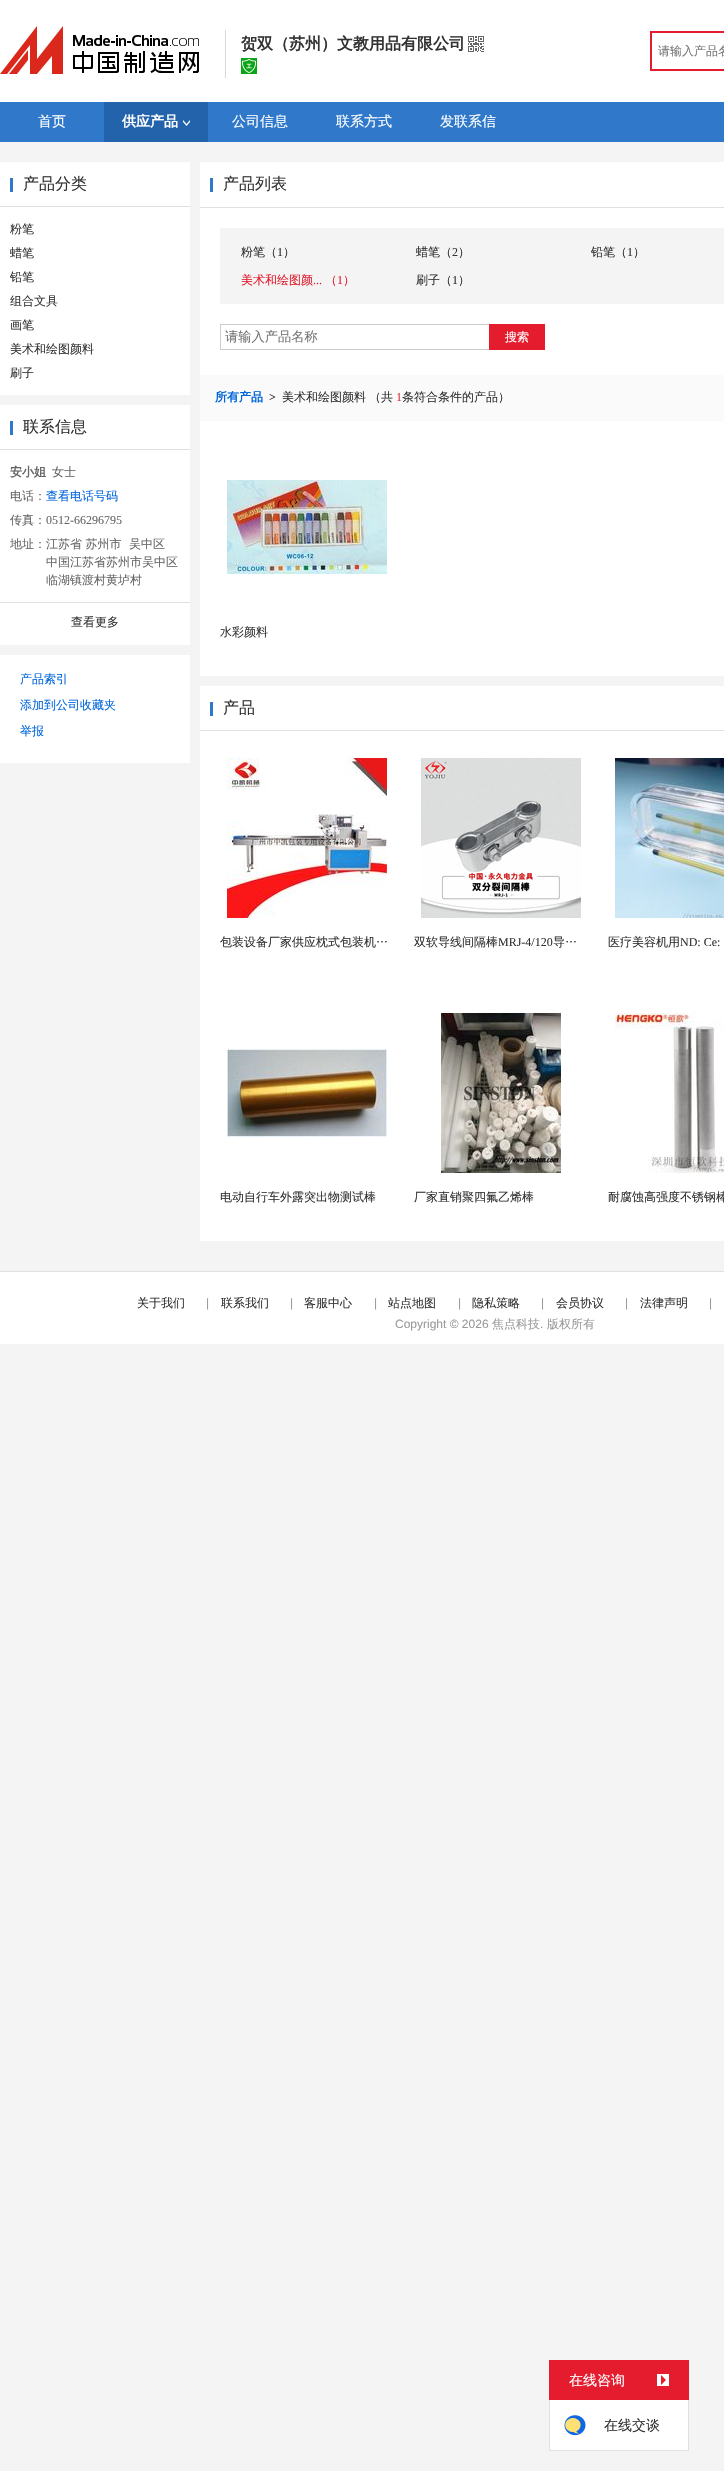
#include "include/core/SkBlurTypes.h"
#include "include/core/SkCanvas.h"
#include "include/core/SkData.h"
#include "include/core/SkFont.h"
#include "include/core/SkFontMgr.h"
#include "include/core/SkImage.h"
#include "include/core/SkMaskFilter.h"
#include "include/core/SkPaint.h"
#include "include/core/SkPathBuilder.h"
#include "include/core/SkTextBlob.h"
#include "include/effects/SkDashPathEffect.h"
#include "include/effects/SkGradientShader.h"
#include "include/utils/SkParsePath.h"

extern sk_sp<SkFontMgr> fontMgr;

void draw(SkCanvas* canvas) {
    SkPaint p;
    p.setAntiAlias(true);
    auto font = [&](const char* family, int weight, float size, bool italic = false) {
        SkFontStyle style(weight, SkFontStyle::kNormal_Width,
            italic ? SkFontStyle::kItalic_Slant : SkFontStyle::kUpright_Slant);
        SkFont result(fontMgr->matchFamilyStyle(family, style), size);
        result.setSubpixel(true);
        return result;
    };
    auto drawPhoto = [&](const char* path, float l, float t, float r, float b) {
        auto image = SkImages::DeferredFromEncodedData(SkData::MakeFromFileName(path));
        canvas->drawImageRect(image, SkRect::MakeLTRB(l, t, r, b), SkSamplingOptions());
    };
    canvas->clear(0xFFF4F4F4);
    p.setColor(0xFFFFFFFF);
    canvas->drawRect(SkRect::MakeLTRB(0, 0, 724, 102), p);
    drawPhoto("media/1.png", 0, 26, 199, 74);
    p.setColor(0xFFD9D9D9);
    canvas->drawRect(SkRect::MakeLTRB(225, 30, 226, 78), p);
    auto font1 = font("WenQuanYi Zen Hei", 700, 16);
    p.setColor(0xFF333333);
    canvas->drawString("贺双（苏州）文教用品有限公司", 241, 49, font1, p);
    drawPhoto("media/2.png", 468, 36, 484, 52);
    drawPhoto("media/3.png", 241, 58, 257, 74);
    {
        const struct { float l, t, r, b; SkColor color; } items[] = {
            {650, 31, 724, 33, 0xFFE41C2E},
            {650, 69, 724, 71, 0xFFE41C2E},
            {650, 31, 652, 71, 0xFFE41C2E},
        };
        for (auto [l, t, r, b, color] : items) {
            p.setColor(color);
            canvas->drawRect(SkRect::MakeLTRB(l, t, r, b), p);
        }
    }
    auto font2 = font("WenQuanYi Zen Hei", 500, 12);
    p.setColor(0xFF757575);
    canvas->drawString("请输入产品名", 658, 55, font2, p);
    p.setColor(0xFF2F78CA);
    canvas->drawRect(SkRect::MakeLTRB(0, 102, 724, 142), p);
    auto font3 = font("WenQuanYi Zen Hei", 500, 14);
    p.setColor(0xFFFFFFFF);
    canvas->drawString("首页", 38, 126, font3, p);
    p.setColor(0xFF2263AC);
    canvas->drawRect(SkRect::MakeLTRB(104, 102, 208, 142), p);
    auto font4 = font("WenQuanYi Zen Hei", 700, 14);
    p.setColor(0xFFFFFFFF);
    canvas->drawString("供应产品", 122, 126, font4, p);
    drawPhoto("media/4.png", 183, 120, 190, 126);
    {
        const struct { const char* s; float x, y; } items[] = {
            {"公司信息", 232, 126},
            {"联系方式", 336, 126},
            {"发联系信", 440, 126},
        };
        for (auto [s, x, y] : items) {
            canvas->drawString(s, x, y, font3, p);
        }
    }
    {
        const struct { float l, t, r, b; SkColor color; } items[] = {
            {0, 162, 190, 395, 0xFFFFFFFF},
            {0, 206, 190, 207, 0xFFE0E0E0},
            {10, 178, 13, 192, 0xFF2F78CA},
        };
        for (auto [l, t, r, b, color] : items) {
            p.setColor(color);
            canvas->drawRect(SkRect::MakeLTRB(l, t, r, b), p);
        }
    }
    auto font5 = font("WenQuanYi Zen Hei", 500, 16);
    p.setColor(0xFF333333);
    canvas->drawString("产品分类", 23, 189, font5, p);
    {
        const struct { const char* s; float x, y; } items[] = {
            {"粉笔", 10, 233},
            {"蜡笔", 10, 257},
            {"铅笔", 10, 281},
            {"组合文具", 10, 305},
            {"画笔", 10, 329},
            {"美术和绘图颜料", 10, 353},
            {"刷子", 10, 377},
        };
        for (auto [s, x, y] : items) {
            canvas->drawString(s, x, y, font2, p);
        }
    }
    {
        const struct { float l, t, r, b; SkColor color; } items[] = {
            {0, 405, 190, 645, 0xFFFFFFFF},
            {0, 449, 190, 450, 0xFFE0E0E0},
            {10, 421, 13, 435, 0xFF2F78CA},
        };
        for (auto [l, t, r, b, color] : items) {
            p.setColor(color);
            canvas->drawRect(SkRect::MakeLTRB(l, t, r, b), p);
        }
    }
    p.setColor(0xFF333333);
    canvas->drawString("联系信息", 23, 432, font5, p);
    auto font6 = font("WenQuanYi Zen Hei", 700, 12);
    p.setColor(0xFF666666);
    canvas->drawString("安小姐", 10, 476, font6, p);
    canvas->drawString("女士", 52, 476, font2, p);
    canvas->drawString("电话：", 10, 500, font2, p);
    p.setColor(0xFF0066DD);
    canvas->drawString("查看电话号码", 46, 500, font2, p);
    p.setColor(0xFF666666);
    canvas->drawString("传真：", 10, 524, font2, p);
    auto font7 = font("Liberation Serif", 400, 12);
    canvas->drawString("0512-66296795", 46, 524, font7, p);
    {
        const struct { const char* s; float x, y; } items[] = {
            {"地址：", 10, 548},
            {"江苏省 苏州市", 46, 548},
            {"吴中区", 129, 548},
            {"中国江苏省苏州市吴中区", 46, 566},
            {"临湖镇渡村黄垆村", 46, 584},
        };
        for (auto [s, x, y] : items) {
            canvas->drawString(s, x, y, font2, p);
        }
    }
    p.setColor(0xFFE0E0E0);
    canvas->drawRect(SkRect::MakeLTRB(0, 602, 190, 603), p);
    p.setColor(0xFF333333);
    canvas->drawString("查看更多", 71, 626, font2, p);
    p.setColor(0xFFFFFFFF);
    canvas->drawRect(SkRect::MakeLTRB(0, 655, 190, 763), p);
    p.setColor(0xFF0066DD);
    {
        const struct { const char* s; float x, y; } items[] = {
            {"产品索引", 20, 683},
            {"添加到公司收藏夹", 20, 709},
            {"举报", 20, 735},
        };
        for (auto [s, x, y] : items) {
            canvas->drawString(s, x, y, font2, p);
        }
    }
    {
        const struct { float l, t, r, b; SkColor color; } items[] = {
            {200, 162, 724, 676, 0xFFFFFFFF},
            {200, 207, 724, 208, 0xFFE0E0E0},
            {210, 178, 213, 192, 0xFF2F78CA},
        };
        for (auto [l, t, r, b, color] : items) {
            p.setColor(color);
            canvas->drawRect(SkRect::MakeLTRB(l, t, r, b), p);
        }
    }
    p.setColor(0xFF333333);
    canvas->drawString("产品列表", 223, 189, font5, p);
    p.setColor(0xFFF4F4F4);
    canvas->drawRect(SkRect::MakeLTRB(220, 228, 724, 304), p);
    p.setColor(0xFF333333);
    canvas->drawString("粉笔（", 241, 256, font2, p);
    canvas->drawString("1", 277, 256, font7, p);
    canvas->drawString("）", 283, 256, font2, p);
    canvas->drawString("蜡笔（", 416, 256, font2, p);
    canvas->drawString("2", 452, 256, font7, p);
    canvas->drawString("）", 458, 256, font2, p);
    canvas->drawString("铅笔（", 591, 256, font2, p);
    canvas->drawString("1", 627, 256, font7, p);
    canvas->drawString("）", 633, 256, font2, p);
    p.setColor(0xFFE41C2E);
    canvas->drawString("美术和绘图颜", 241, 284, font2, p);
    canvas->drawString("...", 313, 284, font7, p);
    canvas->drawString("（", 325, 284, font2, p);
    canvas->drawString("1", 337, 284, font7, p);
    canvas->drawString("）", 343, 284, font2, p);
    p.setColor(0xFF333333);
    canvas->drawString("刷子（", 416, 284, font2, p);
    canvas->drawString("1", 452, 284, font7, p);
    canvas->drawString("）", 458, 284, font2, p);
    {
        const struct { float l, t, r, b; SkColor color; } items[] = {
            {220, 324, 489, 325, 0xFFCCCCCC},
            {220, 349, 489, 350, 0xFFCCCCCC},
            {220, 324, 221, 350, 0xFFCCCCCC},
        };
        for (auto [l, t, r, b, color] : items) {
            p.setColor(color);
            canvas->drawRect(SkRect::MakeLTRB(l, t, r, b), p);
        }
    }
    auto font8 = font("WenQuanYi Zen Hei", 500, 13.25f);
    p.setColor(0xFF757575);
    canvas->drawString("请输入产品名称", 225, 341, font8, p);
    p.setColor(0xFFE41C2E);
    canvas->drawRect(SkRect::MakeLTRB(489, 324, 545, 350), p);
    p.setColor(0xFFFFFFFF);
    canvas->drawString("搜索", 505, 341, font2, p);
    p.setColor(0xFFFAFAFA);
    canvas->drawRect(SkRect::MakeLTRB(200, 375, 724, 421), p);
    p.setColor(0xFF0066DD);
    canvas->drawString("所有产品", 215, 401, font6, p);
    auto font9 = font("Liberation Serif", 700, 12);
    p.setColor(0xFF333333);
    canvas->drawString(">", 269, 401, font9, p);
    canvas->drawString("美术和绘图颜料", 282, 401, font2, p);
    canvas->drawString("（共", 369, 401, font2, p);
    p.setColor(0xFFD9363C);
    canvas->drawString("1", 396, 401, font7, p);
    p.setColor(0xFF333333);
    canvas->drawString("条符合条件的产品）", 402, 401, font2, p);
    drawPhoto("media/5.png", 227, 480, 387, 574);
    canvas->drawString("水彩颜料", 220, 636, font2, p);
    {
        const struct { float l, t, r, b; SkColor color; } items[] = {
            {200, 686, 724, 1241, 0xFFFFFFFF},
            {200, 730, 724, 731, 0xFFE0E0E0},
            {210, 702, 213, 716, 0xFF2F78CA},
        };
        for (auto [l, t, r, b, color] : items) {
            p.setColor(color);
            canvas->drawRect(SkRect::MakeLTRB(l, t, r, b), p);
        }
    }
    p.setColor(0xFF333333);
    canvas->drawString("产品", 223, 713, font5, p);
    drawPhoto("media/6.png", 227, 758, 387, 918);
    canvas->drawString("包装设备厂家供应枕式包装机…", 220, 946, font2, p);
    drawPhoto("media/7.png", 421, 758, 581, 918);
    canvas->drawString("双软导线间隔棒", 414, 946, font2, p);
    canvas->drawString("MRJ-4/120", 498, 946, font7, p);
    canvas->drawString("导…", 553, 946, font2, p);
    drawPhoto("media/8.png", 615, 758, 724, 918);
    canvas->drawString("医疗美容机用", 608, 946, font2, p);
    canvas->drawString("ND: Ce:", 680, 946, font7, p);
    drawPhoto("media/9.png", 227, 1049, 387, 1137);
    canvas->drawString("电动自行车外露突出物测试棒", 220, 1201, font2, p);
    drawPhoto("media/10.png", 441, 1013, 561, 1173);
    canvas->drawString("厂家直销聚四氟乙烯棒", 414, 1201, font2, p);
    drawPhoto("media/11.png", 615, 1013, 724, 1173);
    canvas->drawString("耐腐蚀高强度不锈钢棒", 608, 1201, font2, p);
    p.setColor(0xFFFFFFFF);
    canvas->drawRect(SkRect::MakeLTRB(0, 1272, 724, 1344), p);
    p.setColor(0xFFE0E0E0);
    canvas->drawRect(SkRect::MakeLTRB(0, 1271, 724, 1272), p);
    p.setColor(0xFF333333);
    canvas->drawString("关于我们", 137, 1307, font2, p);
    auto font10 = font("Liberation Sans", 400, 12);
    p.setColor(0xFF999999);
    canvas->drawString("|", 206, 1307, font10, p);
    p.setColor(0xFF333333);
    canvas->drawString("联系我们", 221, 1307, font2, p);
    p.setColor(0xFF999999);
    canvas->drawString("|", 290, 1307, font10, p);
    p.setColor(0xFF333333);
    canvas->drawString("客服中心", 304, 1307, font2, p);
    p.setColor(0xFF999999);
    canvas->drawString("|", 374, 1307, font10, p);
    p.setColor(0xFF333333);
    canvas->drawString("站点地图", 388, 1307, font2, p);
    p.setColor(0xFF999999);
    canvas->drawString("|", 458, 1307, font10, p);
    p.setColor(0xFF333333);
    canvas->drawString("隐私策略", 472, 1307, font2, p);
    p.setColor(0xFF999999);
    canvas->drawString("|", 541, 1307, font10, p);
    p.setColor(0xFF333333);
    canvas->drawString("会员协议", 556, 1307, font2, p);
    p.setColor(0xFF999999);
    canvas->drawString("|", 625, 1307, font10, p);
    p.setColor(0xFF333333);
    canvas->drawString("法律声明", 640, 1307, font2, p);
    p.setColor(0xFF999999);
    canvas->drawString("|", 709, 1307, font10, p);
    canvas->drawString("Copyright © 2026", 395, 1328, font10, p);
    canvas->drawString("焦点科技", 492, 1328, font2, p);
    canvas->drawString(".", 540, 1328, font10, p);
    canvas->drawString("版权所有", 547, 1328, font2, p);
    p.setColor(0xFFE41C2E);
    canvas->drawRect(SkRect::MakeLTRB(549, 2360, 689, 2400), p);
    p.setColor(0xFFFFFFFF);
    canvas->drawString("在线咨询", 569, 2385, font3, p);
    canvas->drawRect(SkRect::MakeLTRB(657, 2374, 669, 2386), p);
    p.setColor(0xFFE41C2E);
    canvas->drawPath(SkPathBuilder().moveTo(661, 2385).lineTo(661, 2375).lineTo(666, 2380).close().detach(), p);
    {
        const struct { float l, t, r, b; SkColor color; } items[] = {
            {550, 2400, 688, 2450, 0xFFFFFFFF},
            {688, 2400, 689, 2451, 0xFFE0E0E0},
            {549, 2450, 689, 2451, 0xFFE0E0E0},
            {549, 2400, 550, 2451, 0xFFE0E0E0},
        };
        for (auto [l, t, r, b, color] : items) {
            p.setColor(color);
            canvas->drawRect(SkRect::MakeLTRB(l, t, r, b), p);
        }
    }
    drawPhoto("media/12.png", 564, 2415, 586, 2436);
    p.setColor(0xFF333333);
    canvas->drawString("在线交谈", 604, 2430, font3, p);
}
